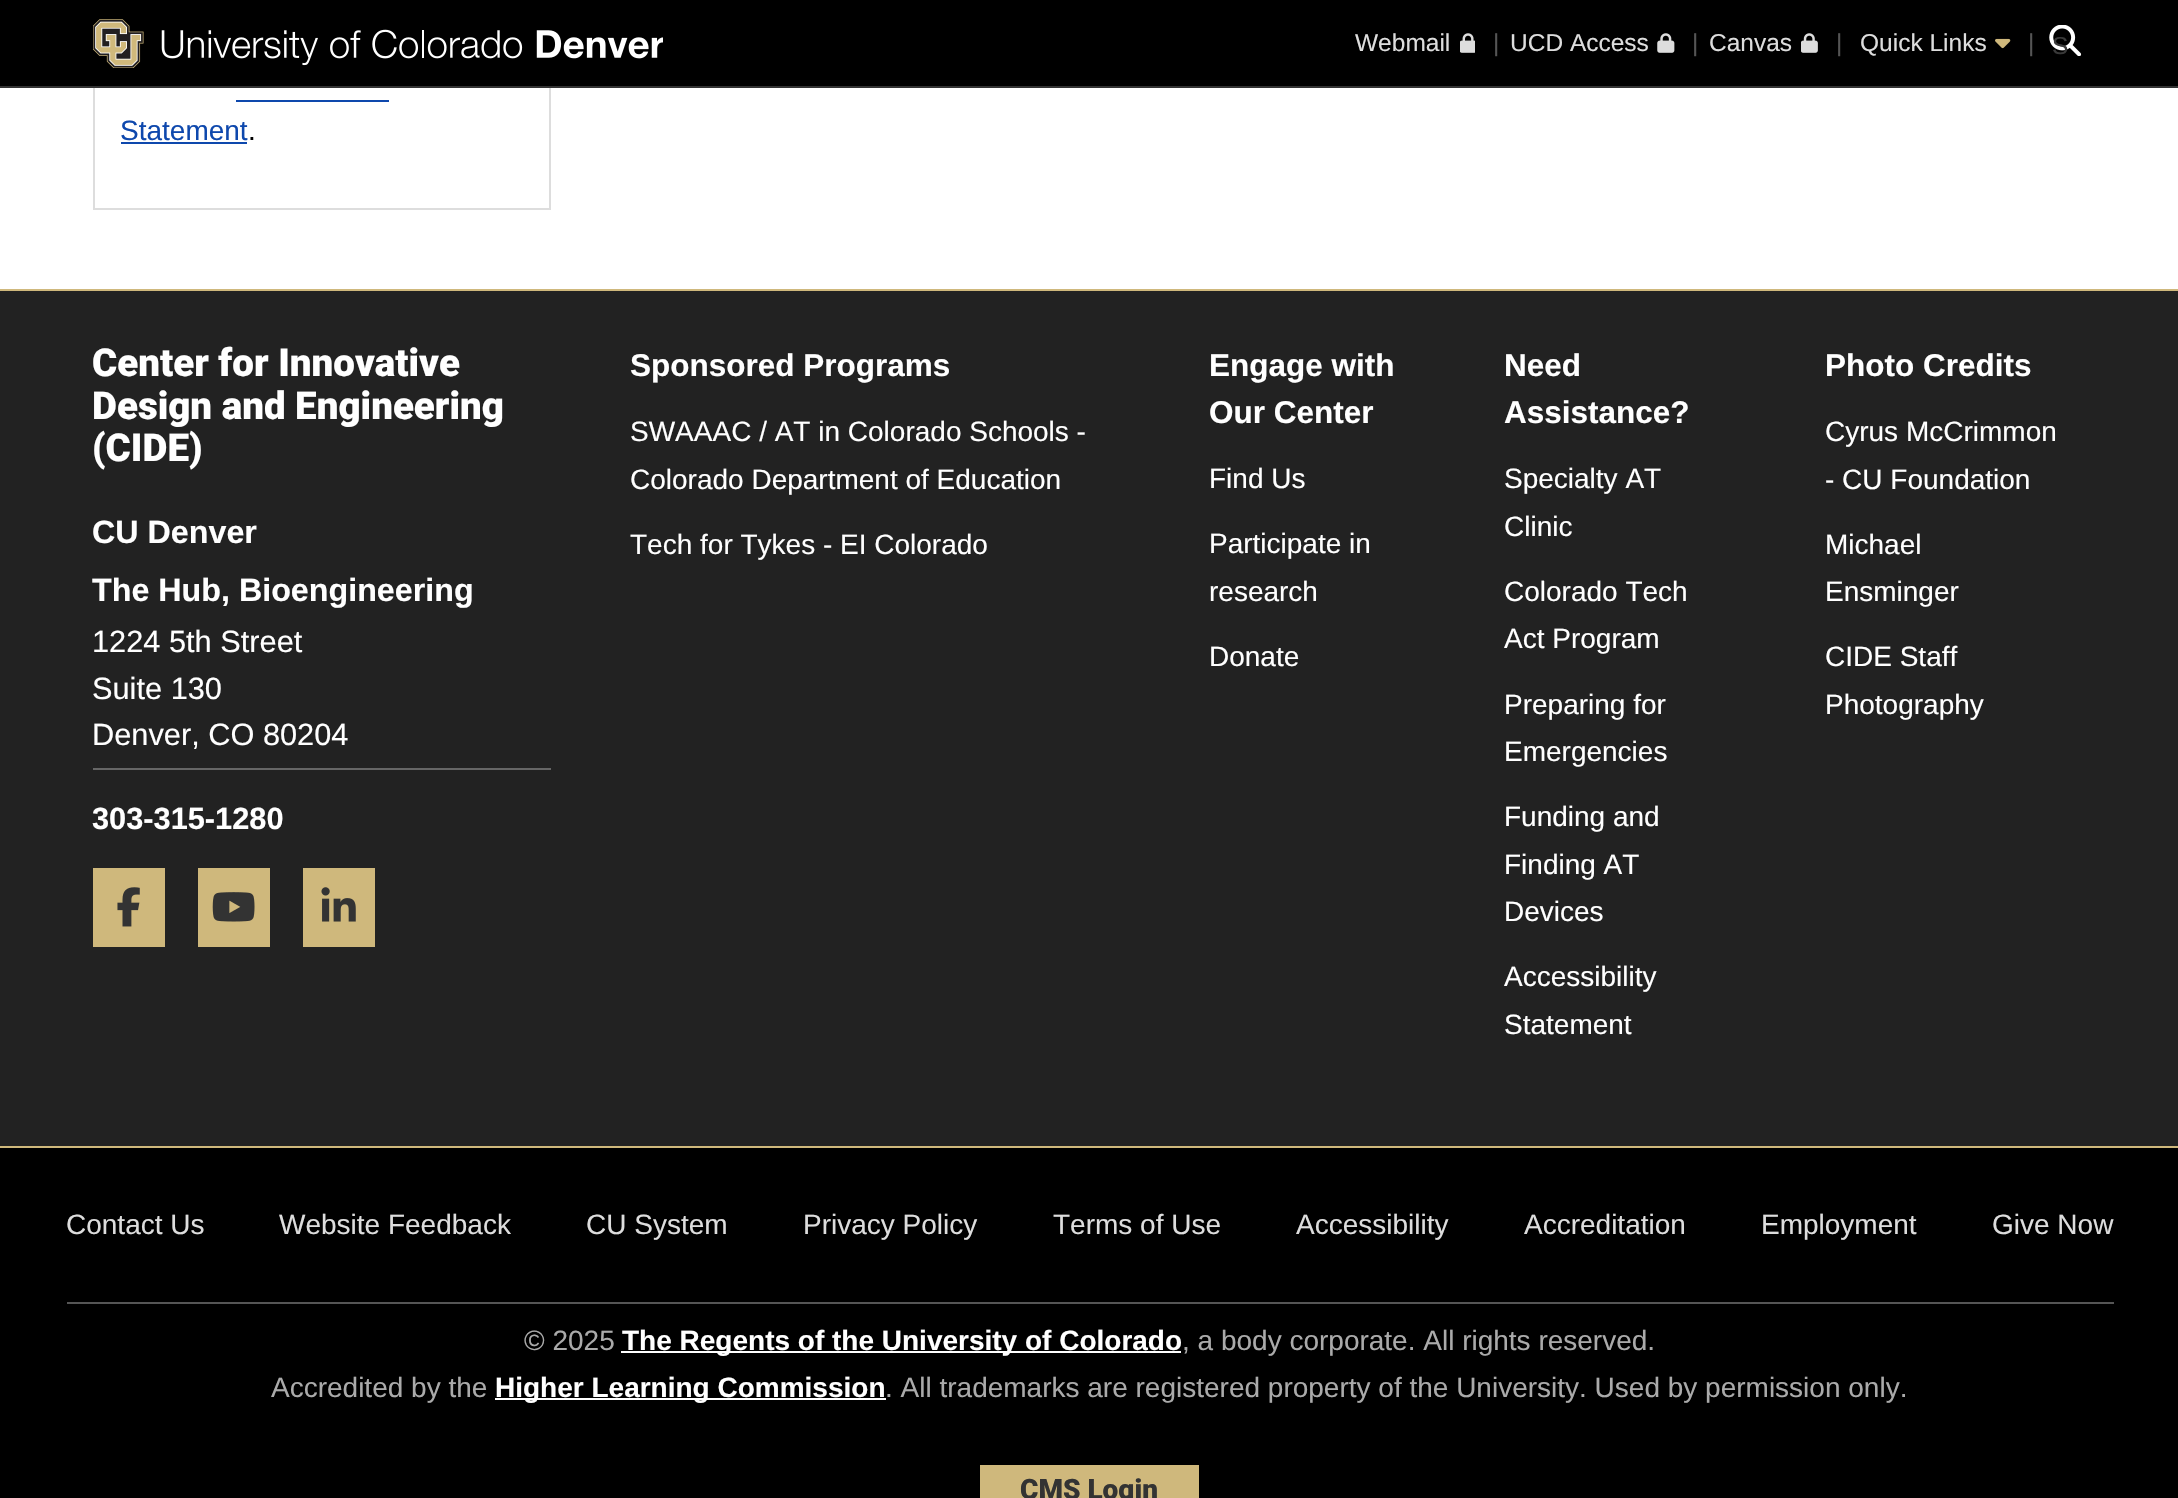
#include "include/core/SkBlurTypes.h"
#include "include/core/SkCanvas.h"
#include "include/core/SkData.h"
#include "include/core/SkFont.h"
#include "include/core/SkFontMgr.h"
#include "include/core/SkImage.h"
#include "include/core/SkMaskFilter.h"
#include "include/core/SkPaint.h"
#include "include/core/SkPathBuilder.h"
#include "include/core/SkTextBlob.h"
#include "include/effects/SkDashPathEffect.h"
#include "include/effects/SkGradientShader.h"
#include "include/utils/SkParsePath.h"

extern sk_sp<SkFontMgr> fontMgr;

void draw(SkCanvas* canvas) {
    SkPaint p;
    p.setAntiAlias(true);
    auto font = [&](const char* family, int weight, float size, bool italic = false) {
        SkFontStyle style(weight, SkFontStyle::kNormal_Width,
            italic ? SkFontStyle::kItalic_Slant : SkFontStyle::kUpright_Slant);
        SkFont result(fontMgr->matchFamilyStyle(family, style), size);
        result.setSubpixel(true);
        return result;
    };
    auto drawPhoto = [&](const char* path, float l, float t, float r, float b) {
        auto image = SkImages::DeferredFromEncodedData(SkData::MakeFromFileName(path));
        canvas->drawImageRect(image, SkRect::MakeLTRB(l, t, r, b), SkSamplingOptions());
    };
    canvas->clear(0xFFFFFFFF);
    p.setStyle(SkPaint::kStroke_Style);
    p.setStrokeWidth(2);
    p.setColor(0xFFDDDDDD);
    canvas->drawRect(SkRect::MakeLTRB(94, -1, 550, 209), p);
    p.setStyle(SkPaint::kFill_Style);
    p.setColor(0xFF000000);
    canvas->drawRect(SkRect::MakeLTRB(0, 0, 2178, 86), p);
    p.setColor(0xFF333333);
    canvas->drawRect(SkRect::MakeLTRB(0, 86, 2178, 88), p);
    drawPhoto("media/1.png", 93, 19, 663, 68);
    auto font1 = font("Liberation Sans", 400, 24.5f);
    p.setColor(0xFFDDDDDD);
    canvas->drawString("Webmail", 1355, 51, font1, p);
    drawPhoto("media/2.png", 1460, 33, 1475, 53);
    p.setColor(0xFF555555);
    canvas->drawString("|", 1493, 51, font1, p);
    p.setColor(0xFFDDDDDD);
    canvas->drawString("UCD Access", 1510, 51, font1, p);
    drawPhoto("media/3.png", 1657, 33, 1675, 53);
    p.setColor(0xFF555555);
    canvas->drawString("|", 1692, 51, font1, p);
    p.setColor(0xFFDDDDDD);
    canvas->drawString("Canvas", 1709, 51, font1, p);
    drawPhoto("media/4.png", 1801, 33, 1818, 53);
    p.setColor(0xFF555555);
    canvas->drawString("|", 1836, 51, font1, p);
    p.setColor(0xFFDDDDDD);
    canvas->drawString("Quick Links", 1860, 51, font1, p);
    drawPhoto("media/5.png", 1995, 38, 2011, 49);
    p.setColor(0xFF555555);
    canvas->drawString("|", 2028, 51, font1, p);
    drawPhoto("media/6.png", 2049, 25, 2082, 56);
    p.setColor(0xFF393939);
    canvas->drawString("S", 2052, 54, font1, p);
    auto font2 = font("Liberation Sans", 400, 28);
    p.setColor(0xFF0E48AD);
    canvas->drawString("Statement", 120, 140, font2, p);
    canvas->drawRect(SkRect::MakeLTRB(236, 100, 389, 102), p);
    canvas->drawRect(SkRect::MakeLTRB(121, 142, 247, 144), p);
    p.setColor(0xFF000000);
    canvas->drawString(".", 248, 140, font2, p);
    p.setColor(0xFF222222);
    canvas->drawRect(SkRect::MakeLTRB(0, 291, 2178, 1146), p);
    p.setColor(0xFFCFB87C);
    canvas->drawRect(SkRect::MakeLTRB(0, 289, 2178, 291), p);
    auto font3 = font("Roboto", 900, 38.5f);
    p.setColor(0xFFFFFFFF);
    {
        const struct { const char* s; float x, y; } items[] = {
            {"Center for Innovative", 92, 376},
            {"Design and Engineering", 92, 419},
            {"(CIDE)", 92, 461},
        };
        for (auto [s, x, y] : items) {
            canvas->drawString(s, x, y, font3, p);
        }
    }
    auto font4 = font("Liberation Sans", 700, 32.25f);
    canvas->drawString("CU Denver", 92, 543, font4, p);
    canvas->drawString("The Hub, Bioengineering", 92, 601, font4, p);
    auto font5 = font("Liberation Sans", 400, 30.75f);
    {
        const struct { const char* s; float x, y; } items[] = {
            {"1224 5th Street", 92, 652},
            {"Suite 130", 92, 699},
            {"Denver, CO 80204", 92, 745},
        };
        for (auto [s, x, y] : items) {
            canvas->drawString(s, x, y, font5, p);
        }
    }
    p.setColor(0xFF666666);
    canvas->drawRect(SkRect::MakeLTRB(93, 768, 551, 770), p);
    auto font6 = font("Liberation Sans", 700, 30.75f);
    p.setColor(0xFFFFFFFF);
    canvas->drawString("303-315-1280", 92, 829, font6, p);
    p.setColor(0xFFCFB87C);
    canvas->drawRect(SkRect::MakeLTRB(93, 868, 165, 947), p);
    drawPhoto("media/7.png", 117, 887, 140, 927);
    canvas->drawRect(SkRect::MakeLTRB(198, 868, 270, 947), p);
    drawPhoto("media/8.png", 212, 892, 255, 922);
    canvas->drawRect(SkRect::MakeLTRB(303, 868, 375, 947), p);
    drawPhoto("media/9.png", 321, 887, 356, 922);
    auto font7 = font("Liberation Sans", 700, 31.5f);
    p.setColor(0xFFFFFFFF);
    canvas->drawString("Sponsored Programs", 630, 376, font7, p);
    {
        const struct { const char* s; float x, y; } items[] = {
            {"SWAAAC / AT in Colorado Schools -", 630, 441},
            {"Colorado Department of Education", 630, 489},
            {"Tech for Tykes - EI Colorado", 630, 554},
        };
        for (auto [s, x, y] : items) {
            canvas->drawString(s, x, y, font2, p);
        }
    }
    canvas->drawString("Engage with", 1209, 376, font7, p);
    canvas->drawString("Our Center", 1209, 423, font7, p);
    {
        const struct { const char* s; float x, y; } items[] = {
            {"Find Us", 1209, 488},
            {"Participate in", 1209, 553},
            {"research", 1209, 601},
            {"Donate", 1209, 666},
        };
        for (auto [s, x, y] : items) {
            canvas->drawString(s, x, y, font2, p);
        }
    }
    canvas->drawString("Need", 1504, 376, font7, p);
    canvas->drawString("Assistance?", 1504, 423, font7, p);
    {
        const struct { const char* s; float x, y; } items[] = {
            {"Specialty AT", 1504, 488},
            {"Clinic", 1504, 536},
            {"Colorado Tech", 1504, 601},
            {"Act Program", 1504, 648},
            {"Preparing for", 1504, 714},
            {"Emergencies", 1504, 761},
            {"Funding and", 1504, 826},
            {"Finding AT", 1504, 874},
            {"Devices", 1504, 921},
            {"Accessibility", 1504, 986},
            {"Statement", 1504, 1034},
        };
        for (auto [s, x, y] : items) {
            canvas->drawString(s, x, y, font2, p);
        }
    }
    canvas->drawString("Photo Credits", 1825, 376, font7, p);
    {
        const struct { const char* s; float x, y; } items[] = {
            {"Cyrus McCrimmon", 1825, 441},
            {"- CU Foundation", 1825, 489},
            {"Michael", 1825, 554},
            {"Ensminger", 1825, 601},
            {"CIDE Staff", 1825, 666},
            {"Photography", 1825, 714},
        };
        for (auto [s, x, y] : items) {
            canvas->drawString(s, x, y, font2, p);
        }
    }
    p.setColor(0xFF000000);
    canvas->drawRect(SkRect::MakeLTRB(0, 1148, 2178, 1498), p);
    p.setColor(0xFFCFB87C);
    canvas->drawRect(SkRect::MakeLTRB(0, 1146, 2178, 1148), p);
    p.setColor(0xFFDDDDDD);
    {
        const struct { const char* s; float x, y; } items[] = {
            {"Contact Us", 66, 1234},
            {"Website Feedback", 279, 1234},
            {"CU System", 586, 1234},
            {"Privacy Policy", 803, 1234},
            {"Terms of Use", 1053, 1234},
            {"Accessibility", 1296, 1234},
            {"Accreditation", 1524, 1234},
            {"Employment", 1761, 1234},
            {"Give Now", 1992, 1234},
        };
        for (auto [s, x, y] : items) {
            canvas->drawString(s, x, y, font2, p);
        }
    }
    p.setColor(0xFF555555);
    canvas->drawRect(SkRect::MakeLTRB(67, 1302, 2114, 1304), p);
    p.setColor(0xFFAAAAAA);
    canvas->drawString("© 2025", 524, 1350, font2, p);
    p.setColor(0xFFFFFFFF);
    canvas->drawRect(SkRect::MakeLTRB(621, 1351, 1181, 1353), p);
    auto font8 = font("Liberation Sans", 700, 28);
    canvas->drawString("The Regents of the University of Colorado", 622, 1350, font8, p);
    p.setColor(0xFFAAAAAA);
    canvas->drawString(", a body corporate. All rights reserved.", 1182, 1350, font2, p);
    canvas->drawString("Accredited by the", 271, 1397, font2, p);
    p.setColor(0xFFFFFFFF);
    canvas->drawRect(SkRect::MakeLTRB(495, 1398, 886, 1400), p);
    canvas->drawString("Higher Learning Commission", 495, 1397, font8, p);
    p.setColor(0xFFAAAAAA);
    canvas->drawString(". All trademarks are registered property of the University. Used by permission only.", 885, 1397, font2, p);
    p.setColor(0xFFCFB87C);
    canvas->drawRect(SkRect::MakeLTRB(980, 1465, 1199, 1498), p);
    auto font9 = font("Roboto", 900, 28);
    p.setColor(0xFF333333);
    canvas->drawString("CMS Login", 1020, 1499, font9, p);
}
